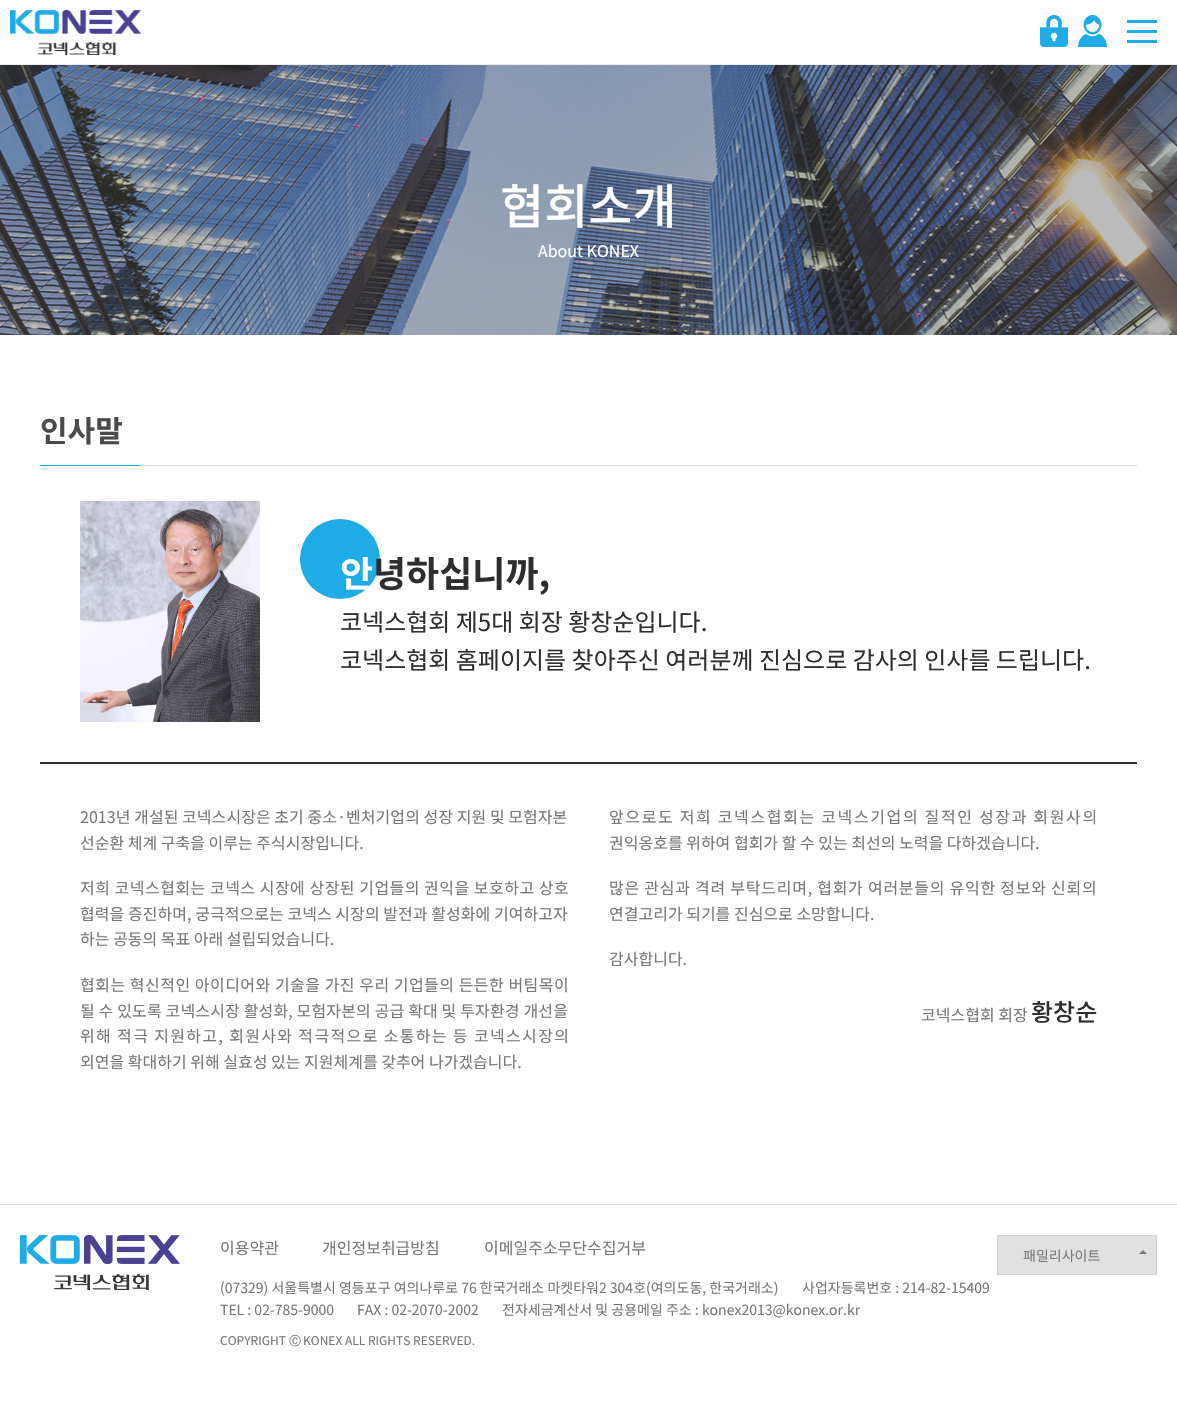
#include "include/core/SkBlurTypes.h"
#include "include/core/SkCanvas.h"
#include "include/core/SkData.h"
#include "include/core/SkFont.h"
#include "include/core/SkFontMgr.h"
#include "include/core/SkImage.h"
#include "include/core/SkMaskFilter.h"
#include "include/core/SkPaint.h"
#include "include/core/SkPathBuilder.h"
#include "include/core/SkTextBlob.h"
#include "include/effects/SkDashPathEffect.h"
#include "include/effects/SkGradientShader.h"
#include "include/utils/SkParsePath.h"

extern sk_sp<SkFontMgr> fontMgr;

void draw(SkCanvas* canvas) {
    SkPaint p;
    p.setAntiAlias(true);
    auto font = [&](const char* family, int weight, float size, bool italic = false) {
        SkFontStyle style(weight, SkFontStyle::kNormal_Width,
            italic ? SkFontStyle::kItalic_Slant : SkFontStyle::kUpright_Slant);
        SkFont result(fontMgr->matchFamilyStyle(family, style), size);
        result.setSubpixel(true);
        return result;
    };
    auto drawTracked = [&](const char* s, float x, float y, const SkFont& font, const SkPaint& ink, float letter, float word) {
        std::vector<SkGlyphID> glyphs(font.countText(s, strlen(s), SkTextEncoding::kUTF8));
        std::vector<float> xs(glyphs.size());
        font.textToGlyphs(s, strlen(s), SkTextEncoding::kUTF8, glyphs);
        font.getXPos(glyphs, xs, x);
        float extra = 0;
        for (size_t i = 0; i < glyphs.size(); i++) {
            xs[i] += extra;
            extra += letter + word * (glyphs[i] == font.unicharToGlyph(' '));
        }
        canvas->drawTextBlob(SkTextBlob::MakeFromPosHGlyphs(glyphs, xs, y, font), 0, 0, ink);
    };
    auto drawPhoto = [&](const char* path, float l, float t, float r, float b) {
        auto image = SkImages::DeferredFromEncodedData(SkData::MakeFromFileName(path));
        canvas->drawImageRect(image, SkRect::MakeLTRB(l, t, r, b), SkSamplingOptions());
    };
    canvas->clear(0xFFFFFFFF);
    p.setColor(0xFFEDEDED);
    canvas->drawRect(SkRect::MakeLTRB(0, 64, 1177, 65), p);
    drawPhoto("media/1.png", 10, 10, 142, 55);
    drawPhoto("media/2.png", 1040, 15, 1068, 47);
    drawPhoto("media/3.png", 1078, 15, 1107, 47);
    {
        const struct { float l, t, r, b; SkColor color; } items[] = {
            {1127, 20, 1157, 23, 0xFF1FABE6},
            {1127, 30, 1157, 33, 0xFF1FABE6},
            {1127, 40, 1157, 43, 0xFF1FABE6},
        };
        for (auto [l, t, r, b, color] : items) {
            p.setColor(color);
            canvas->drawRect(SkRect::MakeLTRB(l, t, r, b), p);
        }
    }
    drawPhoto("media/4.png", 0, 65, 1177, 335);
    auto font1 = font("Noto Sans KR", 500, 48);
    p.setColor(0xFFFFFFFF);
    canvas->drawString("협회소개", 500, 224, font1, p);
    auto font2 = font("Noto Sans KR", 400, 16);
    canvas->drawString("About KONEX", 538, 257, font2, p);
    p.setColor(0xFFDEDEDE);
    canvas->drawRect(SkRect::MakeLTRB(140, 465, 1137, 466), p);
    auto font3 = font("Noto Sans KR", 700, 30);
    p.setColor(0xFF4B4B4B);
    canvas->drawString("인사말", 40, 442, font3, p);
    p.setColor(0xFF1FABE6);
    canvas->drawRect(SkRect::MakeLTRB(40, 465, 140, 466), p);
    drawPhoto("media/5.png", 80, 501, 260, 722);
    canvas->drawCircle(340, 559, 40, p);
    auto font4 = font("Noto Sans KR", 700, 36);
    p.setColor(0xFFFFFFFF);
    canvas->drawString("안", 340, 587, font4, p);
    p.setColor(0xFF2E2E2E);
    canvas->drawString("녕하십니까,", 373, 587, font4, p);
    auto font5 = font("Noto Sans KR", 400, 24);
    canvas->drawString("코넥스협회 제5대 회장 황창순입니다.", 340, 631, font5, p);
    canvas->drawString("코넥스협회 홈페이지를 찾아주신 여러분께 진심으로 감사의 인사를 드립니다.", 340, 669, font5, p);
    canvas->drawRect(SkRect::MakeLTRB(40, 762, 1137, 764), p);
    p.setColor(0xFF787878);
    drawTracked("2013년 개설된 코넥스시장은 초기 중소·벤처기업의 성장 지원 및 모험자본", 80, 823, font2, p, 0.05f, 0);
    canvas->drawString("선순환 체계 구축을 이루는 주식시장입니다.", 80, 849, font2, p);
    drawTracked("저희 코넥스협회는 코넥스 시장에 상장된 기업들의 권익을 보호하고 상호", 80, 894, font2, p, 0.5f, 0);
    drawTracked("협력을 증진하며, 궁극적으로는 코넥스 시장의 발전과 활성화에 기여하고자", 80, 920, font2, p, 0.05f, 0);
    canvas->drawString("하는 공동의 목표 아래 설립되었습니다.", 80, 945, font2, p);
    drawTracked("협회는 혁신적인 아이디어와 기술을 가진 우리 기업들의 든든한 버팀목이", 80, 991, font2, p, 0.5f, 0);
    drawTracked("될 수 있도록 코넥스시장 활성화, 모험자본의 공급 확대 및 투자환경 개선을", 80, 1017, font2, p, 0.15f, 0);
    drawTracked("위해 적극 지원하고, 회원사와 적극적으로 소통하는 등 코넥스시장의", 80, 1042, font2, p, 1.35f, 0);
    canvas->drawString("외연을 확대하기 위해 실효성 있는 지원체계를 갖추어 나가겠습니다.", 80, 1068, font2, p);
    drawTracked("앞으로도 저희 코넥스협회는 코넥스기업의 질적인 성장과 회원사의", 609, 823, font2, p, 1.65f, 0);
    canvas->drawString("권익옹호를 위하여 협회가 할 수 있는 최선의 노력을 다하겠습니다.", 609, 849, font2, p);
    drawTracked("많은 관심과 격려 부탁드리며, 협회가 여러분들의 유익한 정보와 신뢰의", 609, 894, font2, p, 0.75f, 0);
    {
        const struct { const char* s; float x, y; } items[] = {
            {"연결고리가 되기를 진심으로 소망합니다.", 609, 920},
            {"감사합니다.", 609, 965},
            {"코넥스협회 회장", 921, 1021},
        };
        for (auto [s, x, y] : items) {
            canvas->drawString(s, x, y, font2, p);
        }
    }
    auto font6 = font("Noto Sans KR", 500, 24);
    p.setColor(0xFF2E2E2E);
    canvas->drawString("황창순", 1031, 1021, font6, p);
    p.setColor(0xFFDEDEDE);
    canvas->drawRect(SkRect::MakeLTRB(0, 1204, 1177, 1205), p);
    drawPhoto("media/6.png", 20, 1235, 180, 1290);
    p.setColor(0xFF787878);
    {
        const struct { const char* s; float x, y; } items[] = {
            {"이용약관", 220, 1254},
            {"개인정보취급방침", 322, 1254},
            {"이메일주소무단수집거부", 484, 1254},
        };
        for (auto [s, x, y] : items) {
            canvas->drawString(s, x, y, font2, p);
        }
    }
    p.setColor(0xFFE1E1E1);
    canvas->drawRect(SkRect::MakeLTRB(997.5f, 1235.5f, 1156.5f, 1274.5f), p);
    p.setStyle(SkPaint::kStroke_Style);
    p.setStrokeWidth(1);
    p.setColor(0xFFD2D2D2);
    canvas->drawRect(SkRect::MakeLTRB(997.5f, 1235.5f, 1156.5f, 1274.5f), p);
    auto font7 = font("Noto Sans KR", 400, 14);
    p.setStyle(SkPaint::kFill_Style);
    p.setColor(0xFF787878);
    canvas->drawString("패밀리사이트", 1023, 1261, font7, p);
    canvas->drawPath(SkPathBuilder().moveTo(1147, 1254).lineTo(1139, 1254).lineTo(1143, 1250).close().detach(), p);
    {
        const struct { const char* s; float x, y; } items[] = {
            {"(07329) 서울특별시 영등포구 여의나루로 76 한국거래소 마켓타워2 304호(여의도동, 한국거래소)", 220, 1293},
            {"사업자등록번호 : 214-82-15409", 802, 1293},
            {"TEL : 02-785-9000", 220, 1315},
            {"FAX : 02-2070-2002", 357, 1315},
            {"전자세금계산서 및 공용메일 주소 : konex2013@konex.or.kr", 502, 1315},
        };
        for (auto [s, x, y] : items) {
            canvas->drawString(s, x, y, font7, p);
        }
    }
    auto font8 = font("Noto Sans KR", 400, 12);
    canvas->drawString("COPYRIGHT", 220, 1345, font8, p);
    auto font9 = font("WenQuanYi Zen Hei", 500, 12);
    canvas->drawString("Ⓒ", 289, 1345, font9, p);
    canvas->drawString("KONEX ALL RIGHTS RESERVED.", 303, 1345, font8, p);
}
